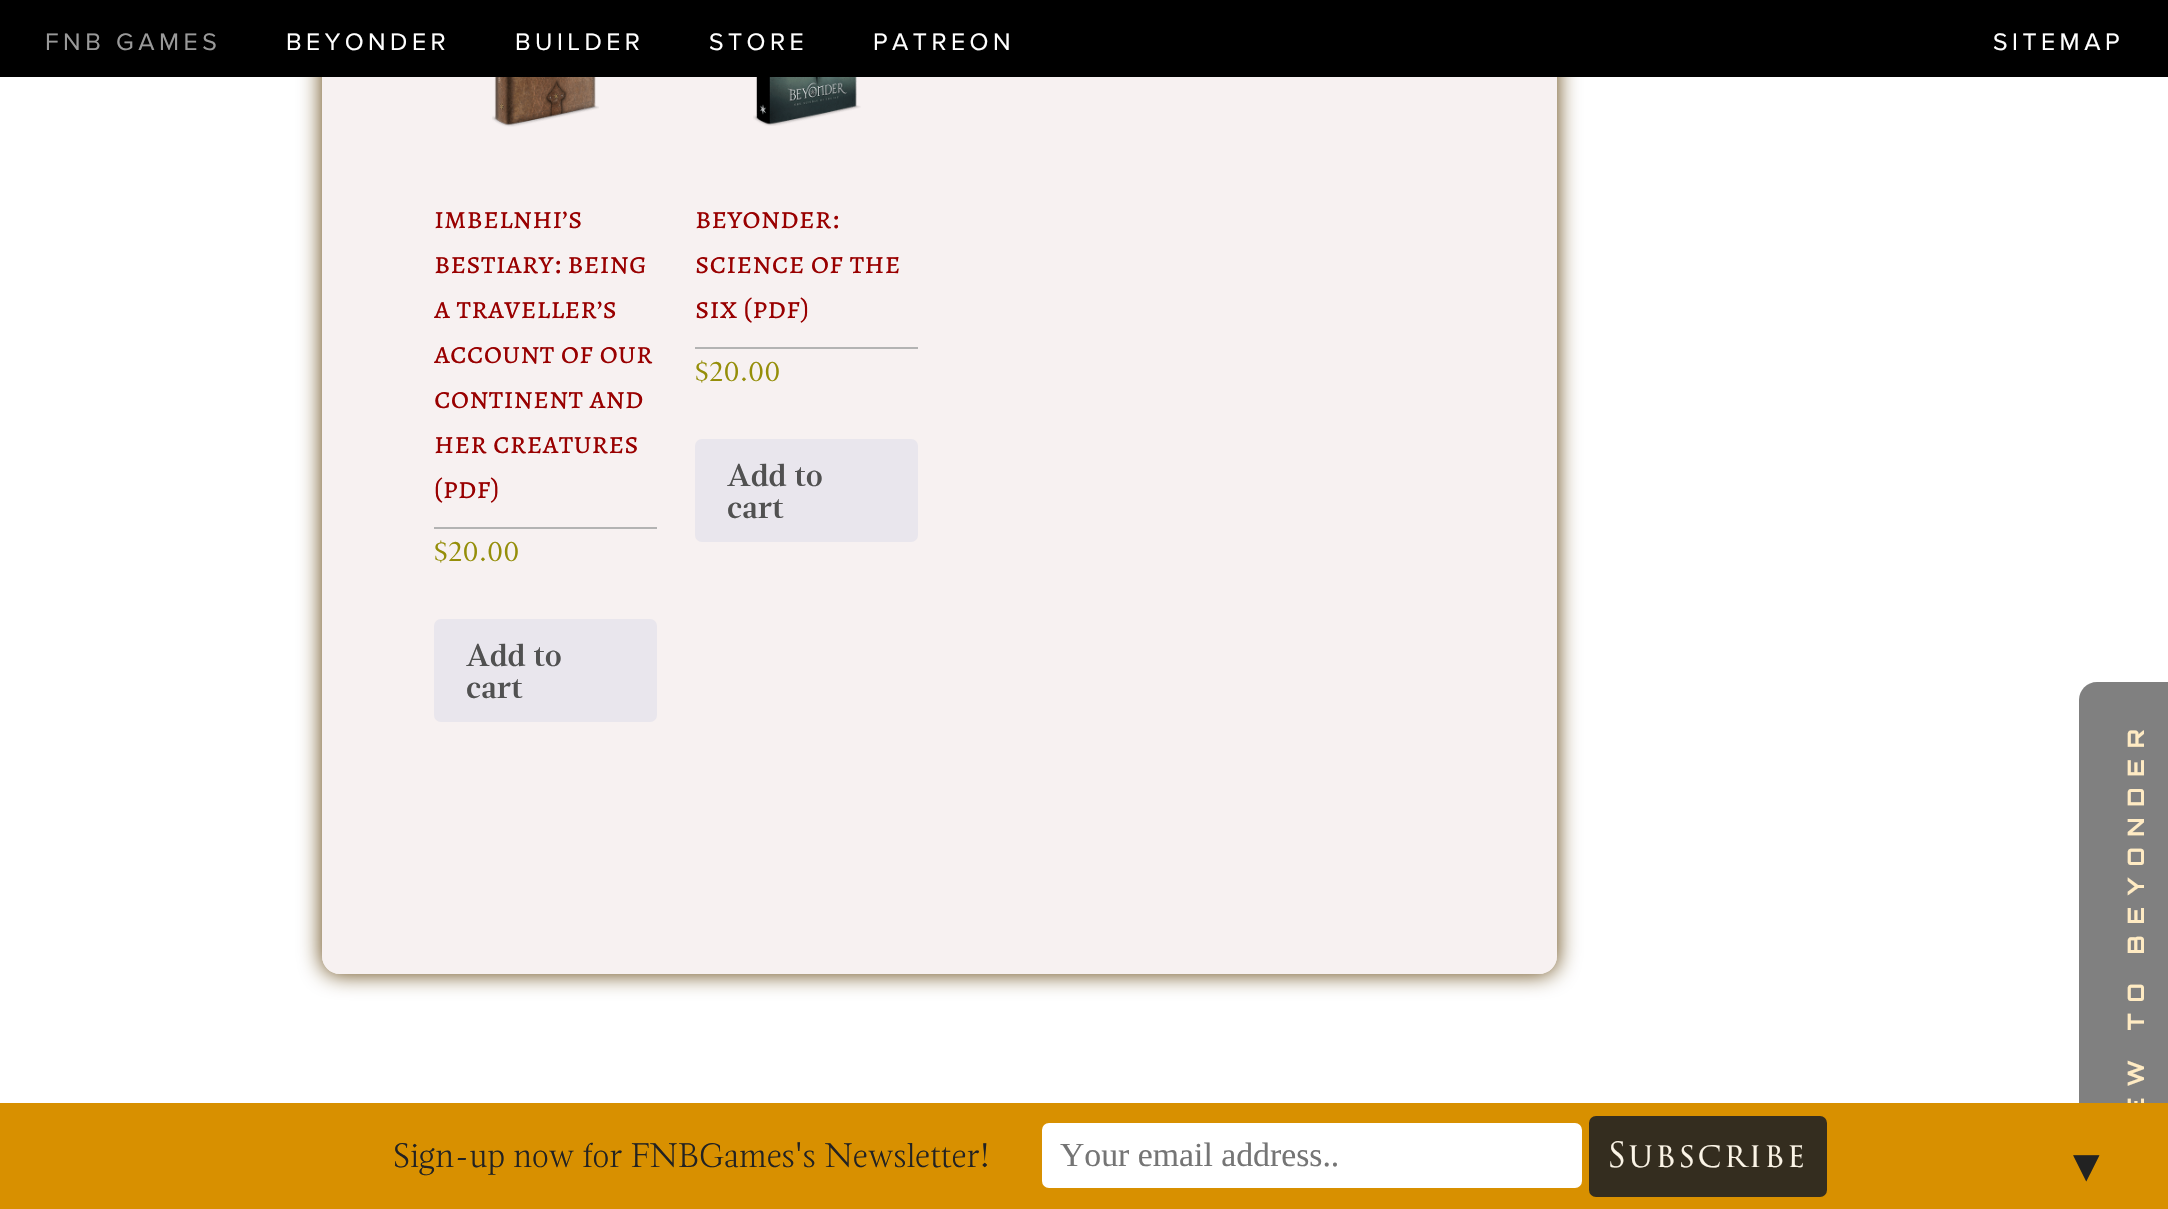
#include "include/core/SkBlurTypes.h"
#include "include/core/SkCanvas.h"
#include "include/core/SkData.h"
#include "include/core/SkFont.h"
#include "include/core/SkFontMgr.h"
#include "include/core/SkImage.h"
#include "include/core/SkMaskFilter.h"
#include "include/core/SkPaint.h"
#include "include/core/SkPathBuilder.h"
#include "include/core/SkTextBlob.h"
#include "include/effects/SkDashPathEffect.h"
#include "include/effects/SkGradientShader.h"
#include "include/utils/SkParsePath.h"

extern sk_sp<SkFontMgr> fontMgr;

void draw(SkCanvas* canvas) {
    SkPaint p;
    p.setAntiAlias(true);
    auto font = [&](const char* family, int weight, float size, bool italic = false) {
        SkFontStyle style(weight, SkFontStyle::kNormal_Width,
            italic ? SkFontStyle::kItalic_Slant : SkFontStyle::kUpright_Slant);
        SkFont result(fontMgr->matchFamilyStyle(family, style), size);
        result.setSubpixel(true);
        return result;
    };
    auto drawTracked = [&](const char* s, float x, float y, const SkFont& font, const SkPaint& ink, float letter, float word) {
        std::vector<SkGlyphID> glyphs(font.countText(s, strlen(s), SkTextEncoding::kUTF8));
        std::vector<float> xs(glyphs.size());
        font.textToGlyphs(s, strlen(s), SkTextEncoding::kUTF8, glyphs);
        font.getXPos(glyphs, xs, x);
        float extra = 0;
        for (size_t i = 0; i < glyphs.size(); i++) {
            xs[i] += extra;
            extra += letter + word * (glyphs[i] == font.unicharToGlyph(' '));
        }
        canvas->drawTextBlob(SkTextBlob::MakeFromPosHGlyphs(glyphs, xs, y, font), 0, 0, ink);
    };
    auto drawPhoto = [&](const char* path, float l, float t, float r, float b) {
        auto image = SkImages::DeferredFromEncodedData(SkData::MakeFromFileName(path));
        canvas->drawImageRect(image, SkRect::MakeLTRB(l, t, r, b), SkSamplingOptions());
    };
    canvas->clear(0xFFFFFFFF);
    canvas->save();
    canvas->clipPath(SkPathBuilder(SkPathFillType::kEvenOdd).moveTo(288, 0).lineTo(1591, 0).lineTo(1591, 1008).lineTo(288, 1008).close().moveTo(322, -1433).lineTo(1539, -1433).cubicTo(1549, -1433, 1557, -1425, 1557, -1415).lineTo(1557, 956).cubicTo(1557, 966, 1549, 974, 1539, 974).lineTo(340, 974).cubicTo(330, 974, 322, 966, 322, 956).close().detach(), true);
    p.setColor(0xFF5E3E07);
    p.setMaskFilter(SkMaskFilter::MakeBlur(kNormal_SkBlurStyle, 11));
    canvas->drawRoundRect(SkRect::MakeLTRB(322, -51, 1557, 974), 18, 18, p);
    p.setMaskFilter(nullptr);
    canvas->restore();
    p.setColor(0xB3F3EBEB);
    canvas->drawPath(SkPathBuilder().moveTo(322, -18).lineTo(1539, -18).cubicTo(1549, -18, 1557, -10, 1557, 0).lineTo(1557, 956).cubicTo(1557, 966, 1549, 974, 1539, 974).lineTo(340, 974).cubicTo(330, 974, 322, 966, 322, 956).close().detach(), p);
    p.setColor(0xFF000000);
    canvas->drawRect(SkRect::MakeLTRB(0, 0, 2168, 77), p);
    auto font1 = font("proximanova", 400, 24.75f);
    p.setColor(0xFF999999);
    drawTracked("FNB GAMES", 45, 50, font1, p, 4.5f, 0);
    p.setColor(0xFFFFFFFF);
    {
        const struct { const char* s; float x, y; } items[] = {
            {"BEYONDER", 286, 50},
            {"BUILDER", 515, 50},
            {"STORE", 709, 50},
            {"PATREON", 873, 50},
            {"SITEMAP", 1993, 50},
        };
        for (auto [s, x, y] : items) {
            drawTracked(s, x, y, font1, p, 4.5f, 0);
        }
    }
    drawPhoto("media/1.png", 492, 77, 599, 127);
    p.setColor(0xFFB3B3B3);
    canvas->drawRect(SkRect::MakeLTRB(434, 527, 657, 529), p);
    auto font2 = font("Alegreya SC", 400, 31.5f);
    p.setColor(0xFF990000);
    {
        const struct { const char* s; float x, y; } items[] = {
            {"imbelnhi’s", 434, 228},
            {"bestiary: being", 434, 273},
            {"a traveller’s", 434, 318},
            {"account of our", 434, 363},
            {"continent and", 434, 408},
            {"her creatures", 434, 453},
            {"(pdf)", 434, 498},
        };
        for (auto [s, x, y] : items) {
            canvas->drawString(s, x, y, font2, p);
        }
    }
    auto font3 = font("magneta", 400, 27);
    p.setColor(0xFF958E09);
    canvas->drawString("$20.00", 434, 561, font3, p);
    p.setColor(0xFFE9E6ED);
    canvas->drawRoundRect(SkRect::MakeLTRB(434, 619, 657, 722), 7, 7, p);
    auto font4 = font("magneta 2", 400, 31.5f);
    p.setColor(0xFF515151);
    canvas->drawString("Add to", 466, 666, font4, p);
    canvas->drawString("cart", 466, 698, font4, p);
    drawPhoto("media/2.png", 753, 77, 861, 126);
    p.setColor(0xFFB3B3B3);
    canvas->drawRect(SkRect::MakeLTRB(695, 347, 918, 349), p);
    p.setColor(0xFF990000);
    {
        const struct { const char* s; float x, y; } items[] = {
            {"beyonder:", 695, 228},
            {"science of the", 695, 273},
            {"six (pdf)", 695, 318},
        };
        for (auto [s, x, y] : items) {
            canvas->drawString(s, x, y, font2, p);
        }
    }
    p.setColor(0xFF958E09);
    canvas->drawString("$20.00", 695, 381, font3, p);
    p.setColor(0xFFE9E6ED);
    canvas->drawRoundRect(SkRect::MakeLTRB(695, 439, 918, 542), 7, 7, p);
    p.setColor(0xFF515151);
    canvas->drawString("Add to", 727, 486, font4, p);
    canvas->drawString("cart", 727, 518, font4, p);
    p.setColor(0xFF808080);
    canvas->drawPath(SkPathBuilder().moveTo(2079, 1163).lineTo(2079, 700).cubicTo(2079, 690, 2087, 682, 2097, 682).lineTo(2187, 682).lineTo(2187, 1181).lineTo(2097, 1181).cubicTo(2087, 1181, 2079, 1173, 2079, 1163).close().detach(), p);
    auto font5 = font("orbitron", 700, 22.5f);
    p.setColor(0xFFFFEBC3);
    canvas->save();
    canvas->rotate(-90, 2144, 1145);
    drawTracked("NEW TO BEYONDER", 2144, 1145, font5, p, 11.25f, 0);
    canvas->restore();
    p.setColor(0xFFD89000);
    canvas->drawRect(SkRect::MakeLTRB(0, 1103, 2168, 1209), p);
    auto font6 = font("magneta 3", 400, 33.75f);
    p.setColor(0xFF222222);
    canvas->drawString("Sign-up now for FNBGames's Newsletter!", 393, 1167, font6, p);
    p.setColor(0xFFFFFFFF);
    canvas->drawRoundRect(SkRect::MakeLTRB(1043, 1124, 1581, 1187), 6, 6, p);
    p.setStyle(SkPaint::kStroke_Style);
    p.setStrokeWidth(2);
    canvas->drawRoundRect(SkRect::MakeLTRB(1043, 1124, 1581, 1187), 6, 6, p);
    auto font7 = font("Liberation Serif", 400, 33.75f);
    p.setStyle(SkPaint::kFill_Style);
    p.setColor(0xFF757575);
    canvas->drawString("Your email address..", 1060, 1166, font7, p);
    p.setColor(0xFF342D1F);
    canvas->drawRoundRect(SkRect::MakeLTRB(1590, 1117, 1826, 1196), 6, 6, p);
    p.setStyle(SkPaint::kStroke_Style);
    canvas->drawRoundRect(SkRect::MakeLTRB(1590, 1117, 1826, 1196), 6, 6, p);
    auto font8 = font("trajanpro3", 400, 33.75f);
    p.setStyle(SkPaint::kFill_Style);
    p.setColor(0xFFFBF4E6);
    drawTracked("Subscribe", 1607, 1167, font8, p, 2.25f, 0);
    auto font9 = font("Liberation Serif", 400, 45);
    p.setColor(0xFF222222);
    canvas->drawString("▼", 2064, 1181, font9, p);
}
